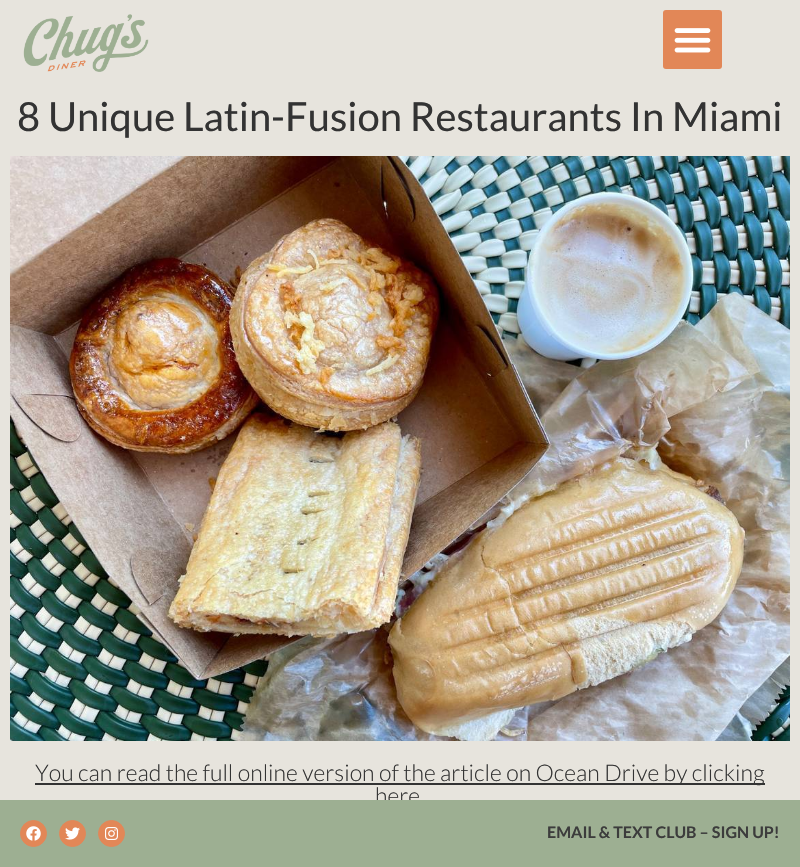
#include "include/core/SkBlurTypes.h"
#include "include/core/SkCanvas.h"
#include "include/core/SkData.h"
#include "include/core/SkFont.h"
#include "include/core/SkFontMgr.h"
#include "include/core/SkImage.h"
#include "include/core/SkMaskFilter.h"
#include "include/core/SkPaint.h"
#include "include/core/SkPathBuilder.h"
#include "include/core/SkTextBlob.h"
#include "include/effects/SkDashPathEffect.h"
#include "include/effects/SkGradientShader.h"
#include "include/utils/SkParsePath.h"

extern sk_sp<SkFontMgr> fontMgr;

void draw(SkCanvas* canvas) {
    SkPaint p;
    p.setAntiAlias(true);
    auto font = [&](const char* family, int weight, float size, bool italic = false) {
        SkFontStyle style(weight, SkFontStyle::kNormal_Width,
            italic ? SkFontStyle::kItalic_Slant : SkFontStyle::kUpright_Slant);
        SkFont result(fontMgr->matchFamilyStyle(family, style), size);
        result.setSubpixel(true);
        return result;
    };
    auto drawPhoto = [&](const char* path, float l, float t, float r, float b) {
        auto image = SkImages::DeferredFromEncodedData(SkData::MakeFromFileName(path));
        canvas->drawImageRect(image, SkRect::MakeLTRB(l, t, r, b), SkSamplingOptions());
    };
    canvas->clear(0xFFE7E4DD);
    drawPhoto("media/1.png", 23, 14, 149, 72);
    p.setColor(0xFFE28757);
    canvas->drawRoundRect(SkRect::MakeLTRB(663, 10, 722, 69), 3, 3, p);
    drawPhoto("media/2.png", 674, 28, 711, 53);
    auto font1 = font("Lato", 400, 40);
    p.setColor(0xFF333333);
    canvas->drawString("8 Unique Latin-Fusion Restaurants In Miami", 17, 131, font1, p);
    drawPhoto("media/3.png", 10, 156, 790, 741);
    canvas->drawRect(SkRect::MakeLTRB(35, 783, 765, 785), p);
    auto font2 = font("Lato", 300, 23);
    canvas->drawString("You can read the full online version of the article on Ocean Drive by clicking", 35, 781, font2, p);
    canvas->drawString("here", 375, 804, font2, p);
    p.setColor(0xFF9DAF92);
    canvas->drawRect(SkRect::MakeLTRB(0, 800, 800, 867), p);
    p.setColor(0xFFE28757);
    canvas->drawCircle(33.5f, 833.5f, 13, p);
    p.setStyle(SkPaint::kStroke_Style);
    p.setStrokeWidth(1);
    canvas->drawCircle(33.5f, 833.5f, 13, p);
    drawPhoto("media/4.png", 26, 826, 41, 841);
    p.setStyle(SkPaint::kFill_Style);
    canvas->drawCircle(72.5f, 833.5f, 13, p);
    p.setStyle(SkPaint::kStroke_Style);
    canvas->drawCircle(72.5f, 833.5f, 13, p);
    drawPhoto("media/5.png", 65, 827, 80, 840);
    p.setStyle(SkPaint::kFill_Style);
    canvas->drawCircle(111.5f, 833.5f, 13, p);
    p.setStyle(SkPaint::kStroke_Style);
    canvas->drawCircle(111.5f, 833.5f, 13, p);
    drawPhoto("media/6.png", 105, 827, 118, 840);
    auto font3 = font("Lato", 700, 16);
    p.setStyle(SkPaint::kFill_Style);
    p.setColor(0xFF3C3C3C);
    canvas->drawString("EMAIL & TEXT CLUB – SIGN UP!", 547, 838, font3, p);
}
